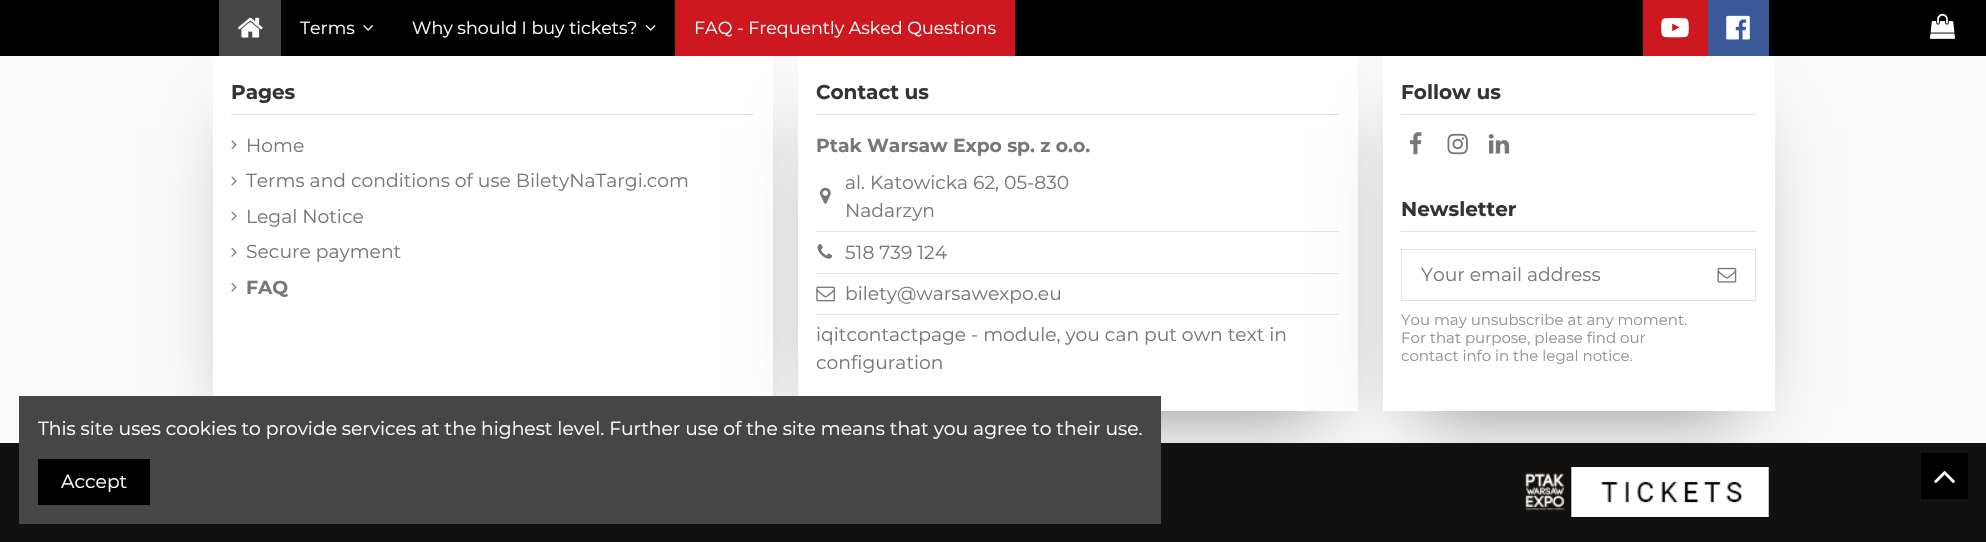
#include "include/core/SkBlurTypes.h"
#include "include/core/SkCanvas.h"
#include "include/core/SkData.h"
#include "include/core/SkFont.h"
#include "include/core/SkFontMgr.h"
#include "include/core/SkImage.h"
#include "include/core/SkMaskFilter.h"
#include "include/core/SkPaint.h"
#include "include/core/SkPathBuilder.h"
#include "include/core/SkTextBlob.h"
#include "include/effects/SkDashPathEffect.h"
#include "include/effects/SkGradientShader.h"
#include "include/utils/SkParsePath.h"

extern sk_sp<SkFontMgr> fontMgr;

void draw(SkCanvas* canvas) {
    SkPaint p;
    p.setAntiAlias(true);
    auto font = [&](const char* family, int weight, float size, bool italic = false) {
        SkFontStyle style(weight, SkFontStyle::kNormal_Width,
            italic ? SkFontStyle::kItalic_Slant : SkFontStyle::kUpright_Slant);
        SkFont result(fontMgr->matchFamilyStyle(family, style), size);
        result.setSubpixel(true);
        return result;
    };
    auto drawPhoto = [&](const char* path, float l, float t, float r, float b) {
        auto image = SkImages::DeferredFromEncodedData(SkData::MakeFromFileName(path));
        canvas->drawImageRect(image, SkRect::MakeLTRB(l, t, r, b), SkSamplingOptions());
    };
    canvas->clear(0xFFFAFAFA);
    p.setColor(0x73000000);
    p.setMaskFilter(SkMaskFilter::MakeBlur(kNormal_SkBlurStyle, 37.5f));
    canvas->drawRect(SkRect::MakeLTRB(250, 130, 735, 411), p);
    p.setMaskFilter(nullptr);
    p.setColor(0xFFFFFFFF);
    canvas->drawRect(SkRect::MakeLTRB(213, 56, 773, 396), p);
    p.setColor(0xFFE3E3E3);
    canvas->drawRect(SkRect::MakeLTRB(231, 114, 754, 115), p);
    p.setColor(0x73000000);
    p.setMaskFilter(SkMaskFilter::MakeBlur(kNormal_SkBlurStyle, 37.5f));
    canvas->drawRect(SkRect::MakeLTRB(835, 130, 1320, 411), p);
    p.setMaskFilter(nullptr);
    {
        const struct { float l, t, r, b; SkColor color; } items[] = {
            {798, 56, 1358, 411, 0xFFFFFFFF},
            {816, 114, 1339, 115, 0xFFE3E3E3},
            {816, 231, 1339, 232, 0xFFE7E7E7},
            {816, 273, 1339, 274, 0xFFE7E7E7},
            {816, 314, 1339, 315, 0xFFE7E7E7},
        };
        for (auto [l, t, r, b, color] : items) {
            p.setColor(color);
            canvas->drawRect(SkRect::MakeLTRB(l, t, r, b), p);
        }
    }
    p.setColor(0x73000000);
    p.setMaskFilter(SkMaskFilter::MakeBlur(kNormal_SkBlurStyle, 37.5f));
    canvas->drawRect(SkRect::MakeLTRB(1420, 130, 1738, 411), p);
    p.setMaskFilter(nullptr);
    p.setColor(0xFF000000);
    canvas->drawRect(SkRect::MakeLTRB(0, 0, 1986, 56), p);
    p.setColor(0xFF474747);
    canvas->drawRect(SkRect::MakeLTRB(219, 0, 281, 56), p);
    drawPhoto("media/1.png", 237, 17, 263, 38);
    auto font1 = font("Montserrat", 400, 17.5f);
    p.setColor(0xFFFFFFFF);
    canvas->drawString("Terms", 300, 34, font1, p);
    drawPhoto("media/2.png", 363, 25, 373, 31);
    canvas->drawString("Why should I buy tickets?", 412, 34, font1, p);
    drawPhoto("media/3.png", 645, 25, 656, 31);
    p.setColor(0xFFCC181E);
    canvas->drawRect(SkRect::MakeLTRB(675, 0, 1015, 56), p);
    p.setColor(0xFFFFFFFF);
    canvas->drawString("FAQ - Frequently Asked Questions", 694, 34, font1, p);
    p.setColor(0xFFCC181E);
    canvas->drawRect(SkRect::MakeLTRB(1643, 0, 1708, 56), p);
    drawPhoto("media/4.png", 1661, 18, 1689, 38);
    p.setColor(0xFF3B5998);
    canvas->drawRect(SkRect::MakeLTRB(1708, 0, 1769, 56), p);
    drawPhoto("media/5.png", 1726, 15, 1750, 40);
    drawPhoto("media/6.png", 1930, 13, 1955, 39);
    auto font2 = font("Montserrat", 700, 20);
    p.setColor(0xFF333333);
    canvas->drawString("Pages", 231, 99, font2, p);
    drawPhoto("media/7.png", 231, 140, 237, 150);
    auto font3 = font("Montserrat", 400, 18.75f);
    p.setColor(0xFF777777);
    canvas->drawString("Home", 246, 152, font3, p);
    drawPhoto("media/8.png", 231, 176, 237, 186);
    canvas->drawString("Terms and conditions of use BiletyNaTargi.com", 246, 187, font3, p);
    drawPhoto("media/8.png", 231, 211, 237, 221);
    canvas->drawString("Legal Notice", 246, 223, font3, p);
    drawPhoto("media/9.png", 231, 247, 237, 257);
    canvas->drawString("Secure payment", 246, 258, font3, p);
    drawPhoto("media/9.png", 231, 282, 237, 292);
    auto font4 = font("Montserrat", 700, 18.75f);
    canvas->drawString("FAQ", 246, 294, font4, p);
    p.setColor(0xFF333333);
    canvas->drawString("Contact us", 816, 99, font2, p);
    p.setColor(0xFF777777);
    canvas->drawString("Ptak Warsaw Expo sp. z o.o.", 816, 152, font4, p);
    drawPhoto("media/10.png", 820, 187, 831, 204);
    canvas->drawString("al. Katowicka 62, 05-830", 845, 189, font3, p);
    canvas->drawString("Nadarzyn", 845, 217, font3, p);
    drawPhoto("media/11.png", 817, 244, 833, 259);
    canvas->drawString("518 739 124", 845, 259, font3, p);
    drawPhoto("media/12.png", 816, 286, 835, 302);
    {
        const struct { const char* s; float x, y; } items[] = {
            {"bilety@warsawexpo.eu", 845, 300},
            {"iqitcontactpage - module, you can put own text in", 816, 341},
            {"configuration", 816, 369},
        };
        for (auto [s, x, y] : items) {
            canvas->drawString(s, x, y, font3, p);
        }
    }
    p.setColor(0xFFFFFFFF);
    canvas->drawRect(SkRect::MakeLTRB(1383, 56, 1775, 411), p);
    p.setColor(0xFFE3E3E3);
    canvas->drawRect(SkRect::MakeLTRB(1401, 114, 1756, 115), p);
    p.setColor(0xFF333333);
    canvas->drawString("Follow us", 1401, 99, font2, p);
    drawPhoto("media/13.png", 1410, 132, 1422, 155);
    drawPhoto("media/14.png", 1447, 133, 1468, 155);
    drawPhoto("media/15.png", 1488, 134, 1510, 154);
    p.setColor(0xFFE3E3E3);
    canvas->drawRect(SkRect::MakeLTRB(1401, 231, 1756, 232), p);
    p.setColor(0xFF333333);
    canvas->drawString("Newsletter", 1401, 216, font2, p);
    p.setStyle(SkPaint::kStroke_Style);
    p.setStrokeWidth(1);
    p.setColor(0xFFE3E3E3);
    canvas->drawRect(SkRect::MakeLTRB(1401.5f, 249.5f, 1755.5f, 300.5f), p);
    p.setStyle(SkPaint::kFill_Style);
    p.setColor(0xFF777777);
    canvas->drawString("Your email address", 1421, 281, font3, p);
    drawPhoto("media/16.png", 1717, 267, 1737, 283);
    auto font5 = font("Montserrat", 400, 15);
    p.setColor(0xFF929292);
    {
        const struct { const char* s; float x, y; } items[] = {
            {"You may unsubscribe at any moment.", 1401, 325},
            {"For that purpose, please find our", 1401, 343},
            {"contact info in the legal notice.", 1401, 361},
        };
        for (auto [s, x, y] : items) {
            canvas->drawString(s, x, y, font5, p);
        }
    }
    p.setColor(0xFF111111);
    canvas->drawRect(SkRect::MakeLTRB(0, 443, 1986, 542), p);
    drawPhoto("media/17.png", 1525, 467, 1769, 517);
    p.setColor(0xFF464646);
    canvas->drawRect(SkRect::MakeLTRB(19, 396, 1161, 524), p);
    p.setColor(0xFFFFFFFF);
    canvas->drawString("This site uses cookies to provide services at the highest level. Further use of the site means that you agree to their use.", 38, 435, font3, p);
    p.setColor(0xFF000000);
    canvas->drawRect(SkRect::MakeLTRB(38, 459, 150, 505), p);
    p.setColor(0xFFFFFFFF);
    canvas->drawString("Accept", 61, 488, font3, p);
    p.setColor(0xFF000000);
    canvas->drawRect(SkRect::MakeLTRB(1921, 453, 1968, 499), p);
    drawPhoto("media/18.png", 1934, 471, 1955, 484);
}
